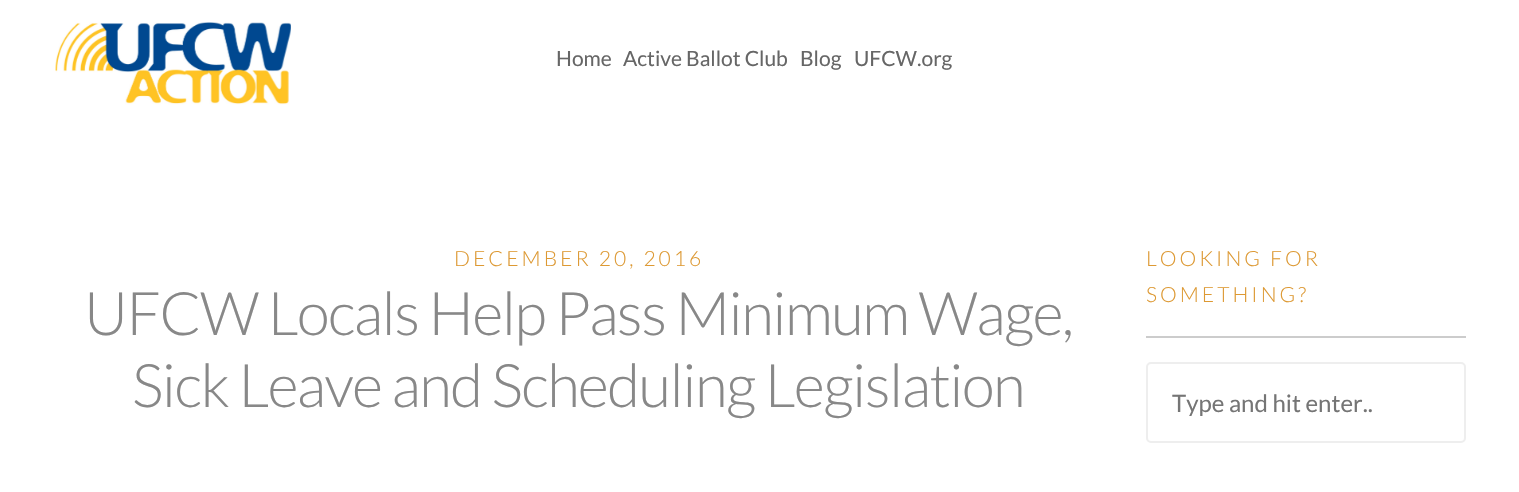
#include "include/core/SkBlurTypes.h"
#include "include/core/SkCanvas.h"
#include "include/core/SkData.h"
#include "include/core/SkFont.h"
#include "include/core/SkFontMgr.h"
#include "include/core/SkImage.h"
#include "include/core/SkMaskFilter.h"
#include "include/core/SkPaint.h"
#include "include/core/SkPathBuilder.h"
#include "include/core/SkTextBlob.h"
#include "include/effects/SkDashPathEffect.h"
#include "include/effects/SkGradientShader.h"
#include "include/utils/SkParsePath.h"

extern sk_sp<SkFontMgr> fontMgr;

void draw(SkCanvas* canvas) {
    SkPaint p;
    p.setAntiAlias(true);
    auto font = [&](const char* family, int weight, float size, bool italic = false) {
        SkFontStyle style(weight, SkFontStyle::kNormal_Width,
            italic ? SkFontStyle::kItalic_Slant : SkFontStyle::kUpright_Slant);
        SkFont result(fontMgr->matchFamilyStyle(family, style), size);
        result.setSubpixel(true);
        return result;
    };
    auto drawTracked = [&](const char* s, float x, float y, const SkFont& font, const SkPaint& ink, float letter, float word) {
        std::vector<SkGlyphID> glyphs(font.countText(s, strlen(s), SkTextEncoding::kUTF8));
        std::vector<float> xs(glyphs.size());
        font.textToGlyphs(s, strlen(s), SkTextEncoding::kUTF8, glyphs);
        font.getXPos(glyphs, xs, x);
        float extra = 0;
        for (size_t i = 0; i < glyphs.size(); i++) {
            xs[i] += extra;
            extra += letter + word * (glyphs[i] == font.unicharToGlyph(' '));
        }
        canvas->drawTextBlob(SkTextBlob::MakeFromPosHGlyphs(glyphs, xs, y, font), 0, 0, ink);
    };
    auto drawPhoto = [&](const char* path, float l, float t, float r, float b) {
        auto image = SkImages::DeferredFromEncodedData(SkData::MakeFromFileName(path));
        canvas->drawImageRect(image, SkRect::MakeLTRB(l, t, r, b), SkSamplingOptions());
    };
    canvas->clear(0xFFFFFFFF);
    drawPhoto("media/1.png", 55, 22, 291, 105);
    auto font1 = font("Lato", 400, 21);
    p.setColor(0xFF666666);
    {
        const struct { const char* s; float x, y; } items[] = {
            {"Home", 556, 66},
            {"Active Ballot Club", 623, 66},
            {"Blog", 800, 66},
            {"UFCW.org", 854, 66},
        };
        for (auto [s, x, y] : items) {
            canvas->drawString(s, x, y, font1, p);
        }
    }
    auto font2 = font("Lato", 300, 21);
    p.setColor(0xFFDD9933);
    drawTracked("DECEMBER 20, 2016", 454, 266, font2, p, 3, 0);
    auto font3 = font("Lato", 300, 60);
    p.setColor(0xFF888888);
    drawTracked("UFCW Locals Help Pass Minimum Wage,", 84, 335, font3, p, -1.5f, 0);
    drawTracked("Sick Leave and Scheduling Legislation", 132, 407, font3, p, -1.5f, 0);
    p.setColor(0xFFDD9933);
    drawTracked("LOOKING FOR", 1146, 266, font2, p, 3, 0);
    drawTracked("SOMETHING?", 1146, 302, font2, p, 3, 0);
    p.setColor(0xFFCCCCCC);
    canvas->drawRect(SkRect::MakeLTRB(1146, 336, 1466, 338), p);
    p.setStyle(SkPaint::kStroke_Style);
    p.setStrokeWidth(2);
    p.setColor(0xFFEEEEEE);
    canvas->drawRoundRect(SkRect::MakeLTRB(1147, 363, 1465, 442), 4, 4, p);
    auto font4 = font("Lato", 400, 24);
    p.setStyle(SkPaint::kFill_Style);
    p.setColor(0xFF757575);
    canvas->drawString("Type and hit enter..", 1172, 412, font4, p);
}
